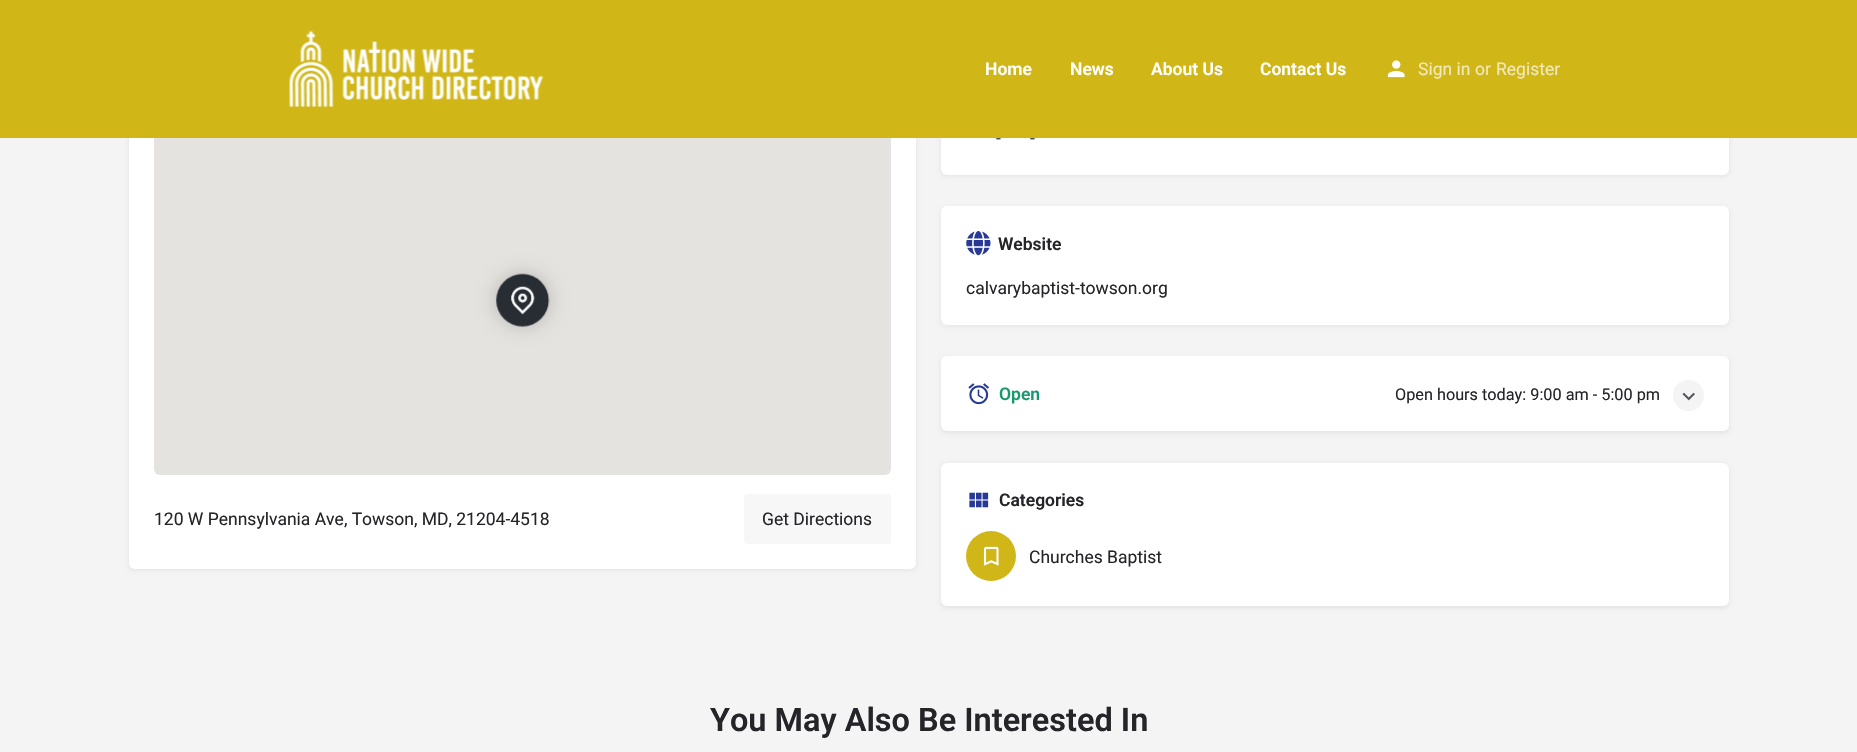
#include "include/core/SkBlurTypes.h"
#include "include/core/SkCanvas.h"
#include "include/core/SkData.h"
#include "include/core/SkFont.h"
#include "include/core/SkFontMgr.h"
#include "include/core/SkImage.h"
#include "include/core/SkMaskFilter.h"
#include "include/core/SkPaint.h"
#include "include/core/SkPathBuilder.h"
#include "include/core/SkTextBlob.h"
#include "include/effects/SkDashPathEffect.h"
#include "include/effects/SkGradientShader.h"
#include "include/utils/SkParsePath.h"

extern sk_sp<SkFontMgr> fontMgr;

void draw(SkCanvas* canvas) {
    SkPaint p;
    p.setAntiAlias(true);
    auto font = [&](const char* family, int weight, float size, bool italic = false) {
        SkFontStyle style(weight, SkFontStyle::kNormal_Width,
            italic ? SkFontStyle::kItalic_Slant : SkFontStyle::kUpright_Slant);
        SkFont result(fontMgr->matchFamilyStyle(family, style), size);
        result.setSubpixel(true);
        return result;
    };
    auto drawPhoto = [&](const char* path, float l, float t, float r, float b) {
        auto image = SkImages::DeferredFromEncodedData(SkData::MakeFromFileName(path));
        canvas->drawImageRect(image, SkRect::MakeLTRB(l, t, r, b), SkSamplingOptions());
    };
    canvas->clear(0xFFF4F4F4);
    p.setColor(0x12000000);
    p.setMaskFilter(SkMaskFilter::MakeBlur(kNormal_SkBlurStyle, 2.5f));
    canvas->drawRoundRect(SkRect::MakeLTRB(129, 58, 916, 570), 6, 6, p);
    p.setMaskFilter(nullptr);
    p.setColor(0xFFFFFFFF);
    canvas->drawRoundRect(SkRect::MakeLTRB(129, 56, 916, 569), 6, 6, p);
    p.setColor(0xFFE5E3DF);
    canvas->drawRoundRect(SkRect::MakeLTRB(154, 125, 891, 475), 6, 6, p);
    p.setColor(0x12000000);
    p.setMaskFilter(SkMaskFilter::MakeBlur(kNormal_SkBlurStyle, 2.5f));
    canvas->drawRoundRect(SkRect::MakeLTRB(941, 58, 1729, 176), 6, 6, p);
    p.setMaskFilter(nullptr);
    p.setColor(0xFFFFFFFF);
    canvas->drawRoundRect(SkRect::MakeLTRB(941, 56, 1729, 175), 6, 6, p);
    p.setColor(0xFFD0B617);
    canvas->drawRect(SkRect::MakeLTRB(0, 0, 1857, 138), p);
    drawPhoto("media/1.png", 289, 30, 544, 107);
    auto font1 = font("Roboto", 600, 17.5f);
    p.setColor(0xFFFFFFFF);
    {
        const struct { const char* s; float x, y; } items[] = {
            {"Home", 985, 75},
            {"News", 1070, 75},
            {"About Us", 1151, 75},
            {"Contact Us", 1260, 75},
        };
        for (auto [s, x, y] : items) {
            canvas->drawString(s, x, y, font1, p);
        }
    }
    drawPhoto("media/2.png", 1387, 60, 1405, 78);
    auto font2 = font("Roboto", 400, 17.5f);
    p.setColor(0xFFF1E9B9);
    {
        const struct { const char* s; float x, y; } items[] = {
            {"Sign in", 1418, 75},
            {"or", 1475, 75},
            {"Register", 1496, 75},
        };
        for (auto [s, x, y] : items) {
            canvas->drawString(s, x, y, font2, p);
        }
    }
    p.setColor(0x33000000);
    p.setMaskFilter(SkMaskFilter::MakeBlur(kNormal_SkBlurStyle, 9.5f));
    canvas->drawRoundRect(SkRect::MakeLTRB(496, 274, 549, 326), 26, 26, p);
    p.setMaskFilter(nullptr);
    drawPhoto("media/3.png", 496, 273, 550, 327);
    p.setColor(0xFF242429);
    canvas->drawString("120 W Pennsylvania Ave, Towson, MD, 21204-4518", 154, 525, font2, p);
    p.setColor(0xFFF7F7F7);
    canvas->drawRoundRect(SkRect::MakeLTRB(744, 494, 891, 544), 4, 4, p);
    p.setColor(0xFF242429);
    canvas->drawString("Get Directions", 762, 525, font2, p);
    p.setColor(0xFF484848);
    canvas->drawString("-", 996, 144, font2, p);
    canvas->drawString("-", 1030, 144, font2, p);
    p.setColor(0x12000000);
    p.setMaskFilter(SkMaskFilter::MakeBlur(kNormal_SkBlurStyle, 2.5f));
    canvas->drawRoundRect(SkRect::MakeLTRB(941, 208, 1729, 326), 6, 6, p);
    p.setMaskFilter(nullptr);
    p.setColor(0xFFFFFFFF);
    canvas->drawRoundRect(SkRect::MakeLTRB(941, 206, 1729, 325), 6, 6, p);
    drawPhoto("media/4.png", 966, 231, 991, 256);
    p.setColor(0xFF242429);
    canvas->drawString("Website", 998, 250, font1, p);
    canvas->drawString("calvarybaptist-towson.org", 966, 294, font2, p);
    p.setColor(0x12000000);
    p.setMaskFilter(SkMaskFilter::MakeBlur(kNormal_SkBlurStyle, 2.5f));
    canvas->drawRoundRect(SkRect::MakeLTRB(941, 358, 1729, 433), 6, 6, p);
    p.setMaskFilter(nullptr);
    p.setColor(0xFFFFFFFF);
    canvas->drawRoundRect(SkRect::MakeLTRB(941, 356, 1729, 431), 6, 6, p);
    drawPhoto("media/5.png", 968, 383, 990, 405);
    p.setColor(0xFF179A6B);
    canvas->drawString("Open", 999, 400, font1, p);
    auto font3 = font("Roboto", 400, 16.25f);
    p.setColor(0xFF242429);
    canvas->drawString("Open hours today: 9:00 am - 5:00 pm", 1395, 400, font3, p);
    p.setColor(0xFFF4F4F4);
    canvas->drawCircle(1688.5f, 395.5f, 15.5f, p);
    drawPhoto("media/6.png", 1682, 392, 1695, 401);
    p.setColor(0x12000000);
    p.setMaskFilter(SkMaskFilter::MakeBlur(kNormal_SkBlurStyle, 2.5f));
    canvas->drawRoundRect(SkRect::MakeLTRB(941, 464, 1729, 608), 6, 6, p);
    p.setMaskFilter(nullptr);
    p.setColor(0xFFFFFFFF);
    canvas->drawRoundRect(SkRect::MakeLTRB(941, 463, 1729, 606), 6, 6, p);
    drawPhoto("media/7.png", 969, 492, 989, 508);
    p.setColor(0xFF242429);
    canvas->drawString("Categories", 999, 506, font1, p);
    p.setColor(0xFFD1B618);
    canvas->drawCircle(991, 556, 25, p);
    drawPhoto("media/8.png", 983, 546, 999, 566);
    p.setColor(0xFF242429);
    canvas->drawString("Churches Baptist", 1029, 563, font2, p);
    auto font4 = font("Roboto", 600, 32.5f);
    canvas->drawString("You May Also Be Interested In", 710, 731, font4, p);
}
